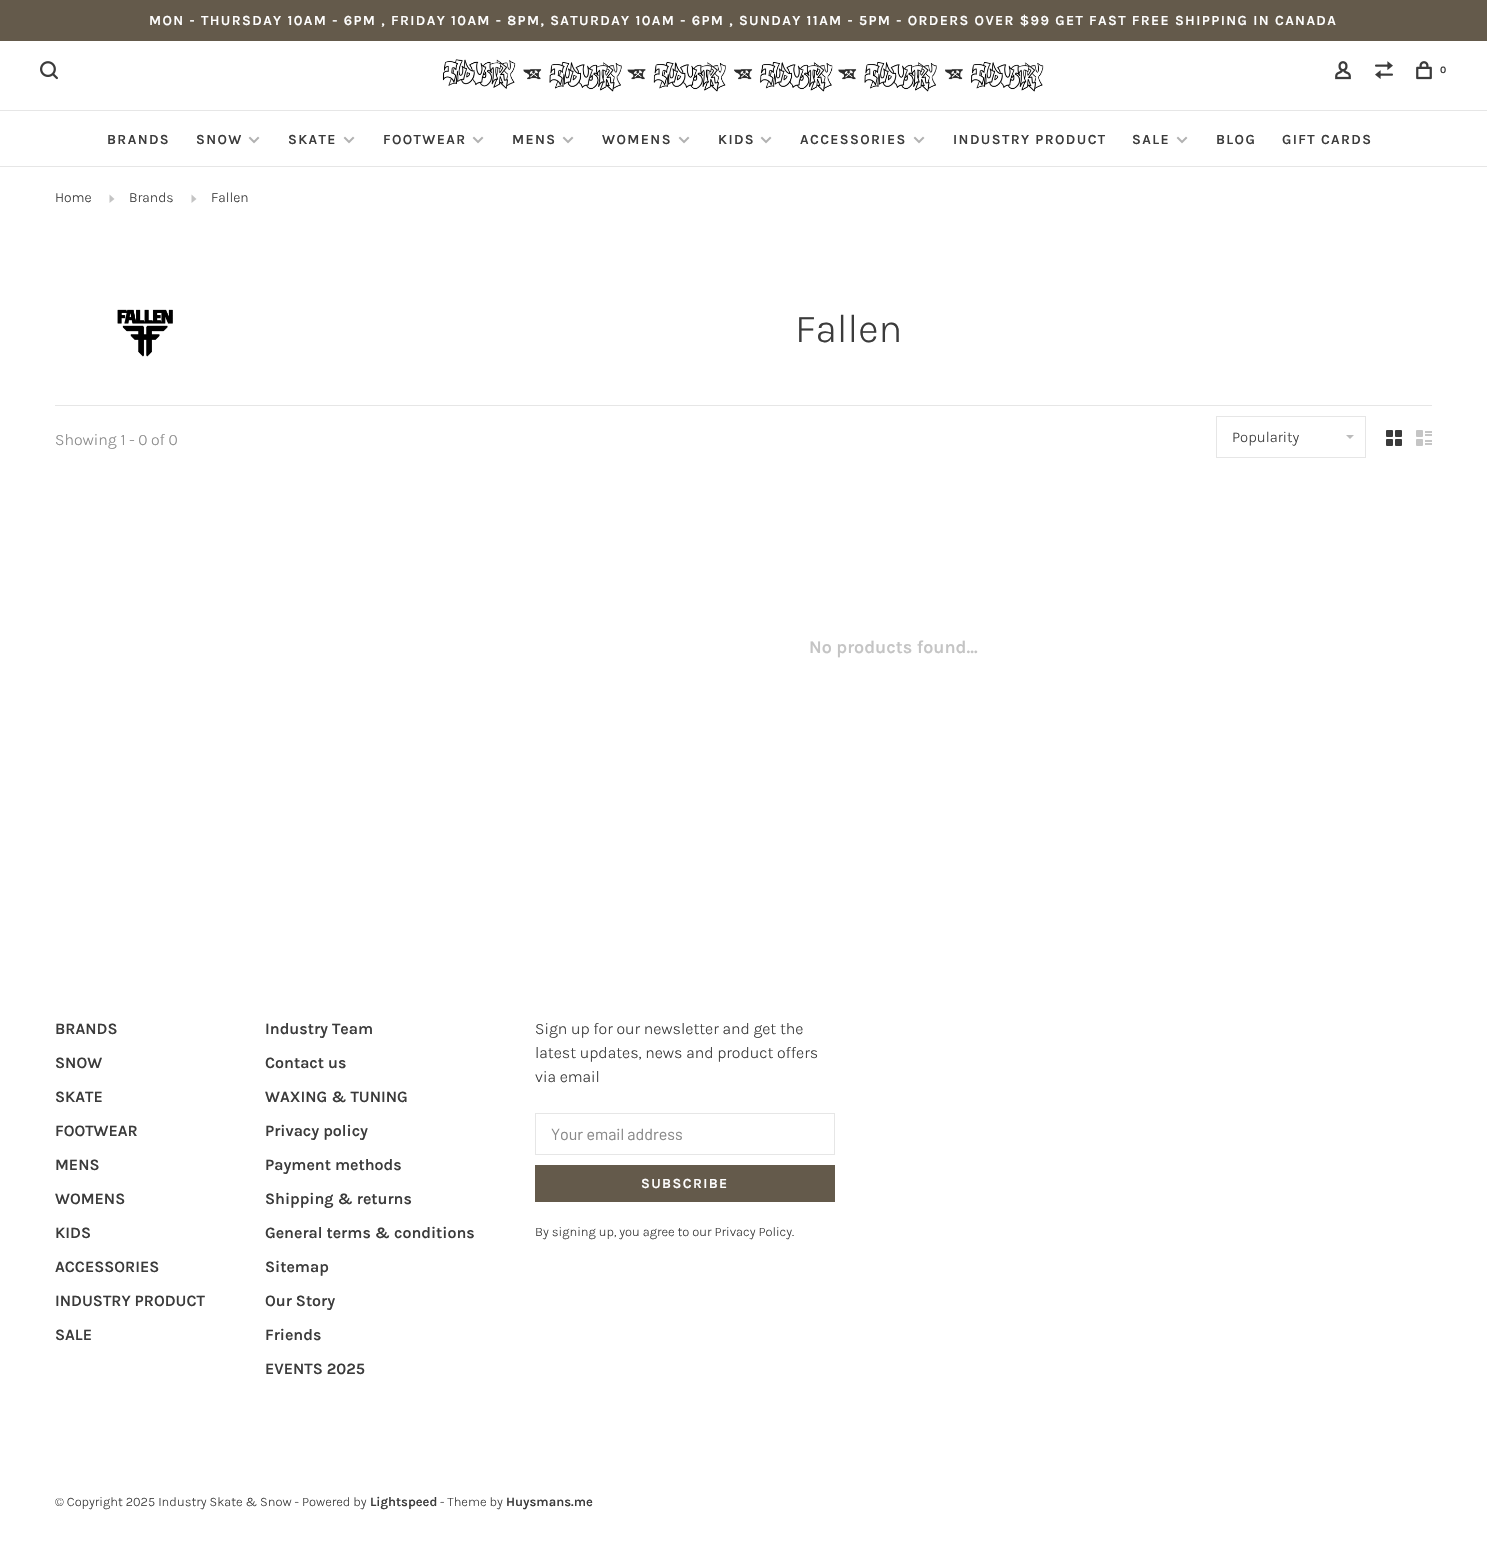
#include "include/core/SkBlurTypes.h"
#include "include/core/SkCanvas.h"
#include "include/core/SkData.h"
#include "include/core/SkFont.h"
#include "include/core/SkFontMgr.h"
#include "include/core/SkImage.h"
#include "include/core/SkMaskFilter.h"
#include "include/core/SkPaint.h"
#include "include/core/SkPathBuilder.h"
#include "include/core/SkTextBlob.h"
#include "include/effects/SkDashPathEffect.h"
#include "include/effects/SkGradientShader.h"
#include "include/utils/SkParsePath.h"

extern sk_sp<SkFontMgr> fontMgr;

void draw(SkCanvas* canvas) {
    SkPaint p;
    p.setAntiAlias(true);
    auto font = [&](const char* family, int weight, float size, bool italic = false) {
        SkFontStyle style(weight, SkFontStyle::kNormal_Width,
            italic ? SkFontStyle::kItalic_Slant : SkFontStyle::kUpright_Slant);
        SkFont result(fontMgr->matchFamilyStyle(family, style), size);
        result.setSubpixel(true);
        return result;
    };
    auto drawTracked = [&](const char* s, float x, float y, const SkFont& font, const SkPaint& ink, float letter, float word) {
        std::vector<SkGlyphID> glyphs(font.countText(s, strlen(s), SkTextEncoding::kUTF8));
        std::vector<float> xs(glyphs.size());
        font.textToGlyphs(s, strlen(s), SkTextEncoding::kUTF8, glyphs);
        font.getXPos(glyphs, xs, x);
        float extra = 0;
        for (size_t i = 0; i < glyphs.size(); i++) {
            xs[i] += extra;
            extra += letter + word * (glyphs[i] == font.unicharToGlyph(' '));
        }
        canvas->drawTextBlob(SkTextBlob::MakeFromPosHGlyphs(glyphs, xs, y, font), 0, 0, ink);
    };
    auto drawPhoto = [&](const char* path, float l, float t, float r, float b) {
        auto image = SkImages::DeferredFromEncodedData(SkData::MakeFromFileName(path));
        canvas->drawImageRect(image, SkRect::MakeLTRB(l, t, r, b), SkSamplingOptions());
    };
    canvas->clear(0xFFFFFFFF);
    p.setColor(0xFF645A4B);
    canvas->drawRect(SkRect::MakeLTRB(0, 0, 1487, 41), p);
    auto font1 = font("Karla", 600, 14);
    p.setColor(0xFFFFFFFF);
    drawTracked("MON - THURSDAY 10AM - 6PM , FRIDAY 10AM - 8PM, SATURDAY 10AM - 6PM , SUNDAY 11AM - 5PM - ORDERS OVER $99 GET FAST FREE SHIPPING IN CANADA", 149, 25, font1, p, 1.4f, 0);
    p.setColor(0xFFE6E6E6);
    canvas->drawRect(SkRect::MakeLTRB(0, 110, 1487, 111), p);
    drawPhoto("media/1.png", 40, 61, 58, 80);
    drawPhoto("media/2.png", 442, 59, 1044, 92);
    drawPhoto("media/3.png", 1335, 61, 1351, 80);
    drawPhoto("media/4.png", 1375, 61, 1393, 79);
    drawPhoto("media/5.png", 1416, 61, 1432, 80);
    auto font2 = font("Karla", 600, 10);
    p.setColor(0xFF3B3B3B);
    drawTracked("0", 1440, 73, font2, p, 1.4f, 0);
    p.setColor(0xFFE6E6E6);
    canvas->drawRect(SkRect::MakeLTRB(0, 166, 1487, 167), p);
    p.setColor(0xFF3B3B3B);
    drawTracked("BRANDS", 107, 144, font1, p, 1.4f, 0);
    drawTracked("SNOW", 196, 144, font1, p, 1.4f, 0);
    drawPhoto("media/6.png", 248, 136, 260, 144);
    drawTracked("SKATE", 288, 144, font1, p, 1.4f, 0);
    drawPhoto("media/6.png", 343, 136, 355, 144);
    drawTracked("FOOTWEAR", 383, 144, font1, p, 1.4f, 0);
    drawPhoto("media/6.png", 472, 136, 484, 144);
    drawTracked("MENS", 512, 144, font1, p, 1.4f, 0);
    drawPhoto("media/6.png", 562, 136, 574, 144);
    drawTracked("WOMENS", 602, 144, font1, p, 1.4f, 0);
    drawPhoto("media/6.png", 678, 136, 690, 144);
    drawTracked("KIDS", 718, 144, font1, p, 1.4f, 0);
    drawPhoto("media/6.png", 760, 136, 772, 144);
    drawTracked("ACCESSORIES", 800, 144, font1, p, 1.4f, 0);
    drawPhoto("media/6.png", 913, 136, 925, 144);
    drawTracked("INDUSTRY PRODUCT", 953, 144, font1, p, 1.4f, 0);
    drawTracked("SALE", 1132, 144, font1, p, 1.4f, 0);
    drawPhoto("media/6.png", 1176, 136, 1188, 144);
    drawTracked("BLOG", 1216, 144, font1, p, 1.4f, 0);
    drawTracked("GIFT CARDS", 1282, 144, font1, p, 1.4f, 0);
    auto font3 = font("Karla", 300, 14);
    canvas->drawString("Home", 55, 202, font3, p);
    p.setColor(0xFFC4C4C4);
    canvas->drawPath(SkPathBuilder().moveTo(109.5f, 203).lineTo(114.5f, 199).lineTo(109.5f, 194.5f).close().detach(), p);
    p.setColor(0xFF3B3B3B);
    canvas->drawString("Brands", 129, 202, font3, p);
    p.setColor(0xFFC4C4C4);
    canvas->drawPath(SkPathBuilder().moveTo(191.5f, 203).lineTo(196.5f, 199).lineTo(191.5f, 194.5f).close().detach(), p);
    p.setColor(0xFF3B3B3B);
    canvas->drawString("Fallen", 211, 202, font3, p);
    drawPhoto("media/7.png", 117, 309, 173, 357);
    auto font4 = font("Karla", 300, 40);
    canvas->drawString("Fallen", 795, 342, font4, p);
    p.setColor(0xFFE6E6E6);
    canvas->drawRect(SkRect::MakeLTRB(55, 405, 1432, 406), p);
    auto font5 = font("Karla", 300, 16);
    p.setColor(0xFF898989);
    canvas->drawString("Showing 1 - 0 of 0", 55, 445, font5, p);
    p.setStyle(SkPaint::kStroke_Style);
    p.setStrokeWidth(1);
    p.setColor(0xFFE6E6E6);
    canvas->drawRect(SkRect::MakeLTRB(1216.5f, 416.5f, 1365.5f, 457.5f), p);
    auto font6 = font("Karla", 300, 15);
    p.setStyle(SkPaint::kFill_Style);
    p.setColor(0xFF3B3B3B);
    canvas->drawString("Popularity", 1232, 442, font6, p);
    p.setColor(0xFFBBBBBB);
    canvas->drawPath(SkPathBuilder().moveTo(1346, 435).lineTo(1354, 435).lineTo(1350, 439).close().detach(), p);
    drawPhoto("media/8.png", 1386, 430, 1402, 446);
    drawPhoto("media/9.png", 1416, 430, 1432, 446);
    auto font7 = font("Karla", 600, 18);
    p.setColor(0xFFC4C4C4);
    canvas->drawString("No products found...", 809, 653, font7, p);
    auto font8 = font("Karla", 600, 16);
    p.setColor(0xFF3B3B3B);
    {
        const struct { const char* s; float x, y; } items[] = {
            {"BRANDS", 55, 1034},
            {"SNOW", 55, 1068},
            {"SKATE", 55, 1102},
            {"FOOTWEAR", 55, 1136},
            {"MENS", 55, 1170},
            {"WOMENS", 55, 1204},
            {"KIDS", 55, 1238},
            {"ACCESSORIES", 55, 1272},
            {"INDUSTRY PRODUCT", 55, 1306},
            {"SALE", 55, 1340},
            {"Industry Team", 265, 1034},
            {"Contact us", 265, 1068},
            {"WAXING & TUNING", 265, 1102},
            {"Privacy policy", 265, 1136},
            {"Payment methods", 265, 1170},
            {"Shipping & returns", 265, 1204},
            {"General terms & conditions", 265, 1238},
            {"Sitemap", 265, 1272},
            {"Our Story", 265, 1306},
            {"Friends", 265, 1340},
            {"EVENTS 2025", 265, 1374},
        };
        for (auto [s, x, y] : items) {
            canvas->drawString(s, x, y, font8, p);
        }
    }
    {
        const struct { const char* s; float x, y; } items[] = {
            {"Sign up for our newsletter and get the", 535, 1034},
            {"latest updates, news and product offers", 535, 1058},
            {"via email", 535, 1082},
        };
        for (auto [s, x, y] : items) {
            canvas->drawString(s, x, y, font5, p);
        }
    }
    p.setStyle(SkPaint::kStroke_Style);
    p.setColor(0xFFE6E6E6);
    canvas->drawRect(SkRect::MakeLTRB(535.5f, 1113.5f, 834.5f, 1154.5f), p);
    auto font9 = font("Barlow", 400, 16);
    p.setStyle(SkPaint::kFill_Style);
    p.setColor(0xFF898989);
    canvas->drawString("Your email address", 551, 1140, font9, p);
    p.setColor(0xFF645A4B);
    canvas->drawRect(SkRect::MakeLTRB(535, 1165, 835, 1202), p);
    p.setColor(0xFFFFFFFF);
    drawTracked("SUBSCRIBE", 641, 1188, font1, p, 1.4f, 0);
    auto font10 = font("Karla", 300, 13);
    p.setColor(0xFF3B3B3B);
    canvas->drawString("By signing up, you agree to our Privacy Policy.", 535, 1236, font10, p);
    canvas->drawString("© Copyright 2025 Industry Skate & Snow - Powered by", 55, 1506, font10, p);
    auto font11 = font("Karla", 600, 13);
    canvas->drawString("Lightspeed", 370, 1506, font11, p);
    canvas->drawString("- Theme by", 440, 1506, font10, p);
    canvas->drawString("Huysmans.me", 506, 1506, font11, p);
}
